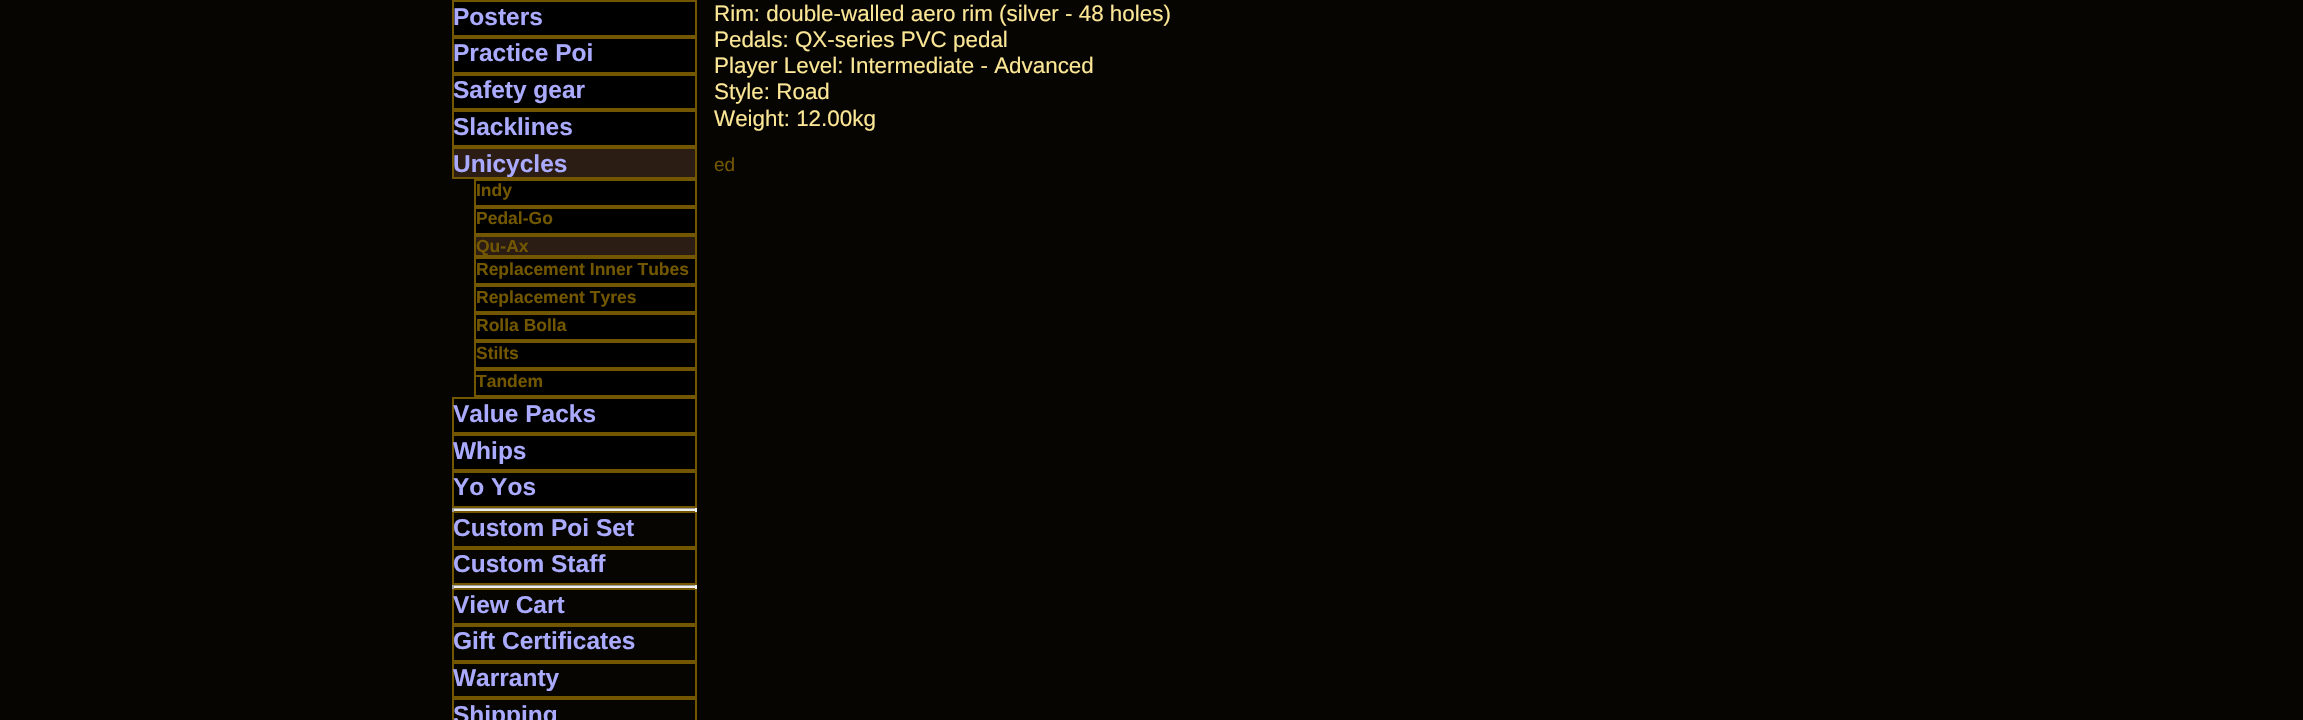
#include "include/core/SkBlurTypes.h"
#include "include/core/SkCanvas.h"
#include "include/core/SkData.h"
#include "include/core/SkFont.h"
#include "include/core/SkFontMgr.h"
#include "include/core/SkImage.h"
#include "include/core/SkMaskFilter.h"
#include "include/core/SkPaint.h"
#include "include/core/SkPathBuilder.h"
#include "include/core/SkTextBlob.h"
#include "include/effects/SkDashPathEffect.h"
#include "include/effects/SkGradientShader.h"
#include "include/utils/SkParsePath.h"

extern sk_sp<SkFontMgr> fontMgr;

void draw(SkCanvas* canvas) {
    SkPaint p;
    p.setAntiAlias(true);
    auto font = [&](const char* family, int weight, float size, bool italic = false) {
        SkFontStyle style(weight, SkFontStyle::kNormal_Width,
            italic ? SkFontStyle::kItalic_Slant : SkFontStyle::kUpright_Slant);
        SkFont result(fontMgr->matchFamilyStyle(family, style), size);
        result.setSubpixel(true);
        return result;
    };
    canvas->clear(0xFF060501);
    p.setColor(0xFF000000);
    canvas->drawRect(SkRect::MakeLTRB(453, 1, 696, 36), p);
    p.setStyle(SkPaint::kStroke_Style);
    p.setStrokeWidth(2);
    p.setColor(0xFF725700);
    canvas->drawRect(SkRect::MakeLTRB(453, 1, 696, 36), p);
    auto font1 = font("Liberation Sans", 700, 24.5f);
    p.setStyle(SkPaint::kFill_Style);
    p.setColor(0xFFAAAAFF);
    canvas->drawString("Posters", 453, 25, font1, p);
    p.setColor(0xFF000000);
    canvas->drawRect(SkRect::MakeLTRB(453, 38, 696, 73), p);
    p.setStyle(SkPaint::kStroke_Style);
    p.setColor(0xFF725700);
    canvas->drawRect(SkRect::MakeLTRB(453, 38, 696, 73), p);
    p.setStyle(SkPaint::kFill_Style);
    p.setColor(0xFFAAAAFF);
    canvas->drawString("Practice Poi", 453, 61, font1, p);
    p.setColor(0xFF000000);
    canvas->drawRect(SkRect::MakeLTRB(453, 75, 696, 109), p);
    p.setStyle(SkPaint::kStroke_Style);
    p.setColor(0xFF725700);
    canvas->drawRect(SkRect::MakeLTRB(453, 75, 696, 109), p);
    p.setStyle(SkPaint::kFill_Style);
    p.setColor(0xFFAAAAFF);
    canvas->drawString("Safety gear", 453, 98, font1, p);
    p.setColor(0xFF000000);
    canvas->drawRect(SkRect::MakeLTRB(453, 111, 696, 146), p);
    p.setStyle(SkPaint::kStroke_Style);
    p.setColor(0xFF725700);
    canvas->drawRect(SkRect::MakeLTRB(453, 111, 696, 146), p);
    p.setStyle(SkPaint::kFill_Style);
    p.setColor(0xFFAAAAFF);
    canvas->drawString("Slacklines", 453, 135, font1, p);
    p.setColor(0xFF2C1D14);
    canvas->drawRect(SkRect::MakeLTRB(453, 148, 696, 178), p);
    p.setStyle(SkPaint::kStroke_Style);
    p.setColor(0xFF725700);
    canvas->drawRect(SkRect::MakeLTRB(453, 148, 696, 178), p);
    p.setStyle(SkPaint::kFill_Style);
    p.setColor(0xFFAAAAFF);
    canvas->drawString("Unicycles", 453, 172, font1, p);
    p.setColor(0xFF000000);
    canvas->drawRect(SkRect::MakeLTRB(475, 180, 696, 206), p);
    p.setStyle(SkPaint::kStroke_Style);
    p.setColor(0xFF725700);
    canvas->drawRect(SkRect::MakeLTRB(475, 180, 696, 206), p);
    auto font2 = font("Liberation Sans", 700, 17.5f);
    p.setStyle(SkPaint::kFill_Style);
    canvas->drawString("Indy", 476, 196, font2, p);
    p.setColor(0xFF000000);
    canvas->drawRect(SkRect::MakeLTRB(475, 208, 696, 234), p);
    p.setStyle(SkPaint::kStroke_Style);
    p.setColor(0xFF725700);
    canvas->drawRect(SkRect::MakeLTRB(475, 208, 696, 234), p);
    p.setStyle(SkPaint::kFill_Style);
    canvas->drawString("Pedal-Go", 476, 224, font2, p);
    p.setColor(0xFF2C1D14);
    canvas->drawRect(SkRect::MakeLTRB(475, 236, 696, 256), p);
    p.setStyle(SkPaint::kStroke_Style);
    p.setColor(0xFF725700);
    canvas->drawRect(SkRect::MakeLTRB(475, 236, 696, 256), p);
    p.setStyle(SkPaint::kFill_Style);
    canvas->drawString("Qu-Ax", 476, 252, font2, p);
    p.setColor(0xFF000000);
    canvas->drawRect(SkRect::MakeLTRB(475, 258, 696, 284), p);
    p.setStyle(SkPaint::kStroke_Style);
    p.setColor(0xFF725700);
    canvas->drawRect(SkRect::MakeLTRB(475, 258, 696, 284), p);
    p.setStyle(SkPaint::kFill_Style);
    canvas->drawString("Replacement Inner Tubes", 476, 275, font2, p);
    p.setColor(0xFF000000);
    canvas->drawRect(SkRect::MakeLTRB(475, 286, 696, 312), p);
    p.setStyle(SkPaint::kStroke_Style);
    p.setColor(0xFF725700);
    canvas->drawRect(SkRect::MakeLTRB(475, 286, 696, 312), p);
    p.setStyle(SkPaint::kFill_Style);
    canvas->drawString("Replacement Tyres", 476, 303, font2, p);
    p.setColor(0xFF000000);
    canvas->drawRect(SkRect::MakeLTRB(475, 314, 696, 340), p);
    p.setStyle(SkPaint::kStroke_Style);
    p.setColor(0xFF725700);
    canvas->drawRect(SkRect::MakeLTRB(475, 314, 696, 340), p);
    p.setStyle(SkPaint::kFill_Style);
    canvas->drawString("Rolla Bolla", 476, 331, font2, p);
    p.setColor(0xFF000000);
    canvas->drawRect(SkRect::MakeLTRB(475, 342, 696, 368), p);
    p.setStyle(SkPaint::kStroke_Style);
    p.setColor(0xFF725700);
    canvas->drawRect(SkRect::MakeLTRB(475, 342, 696, 368), p);
    p.setStyle(SkPaint::kFill_Style);
    canvas->drawString("Stilts", 476, 359, font2, p);
    p.setColor(0xFF000000);
    canvas->drawRect(SkRect::MakeLTRB(475, 370, 696, 396), p);
    p.setStyle(SkPaint::kStroke_Style);
    p.setColor(0xFF725700);
    canvas->drawRect(SkRect::MakeLTRB(475, 370, 696, 396), p);
    p.setStyle(SkPaint::kFill_Style);
    canvas->drawString("Tandem", 476, 387, font2, p);
    p.setColor(0xFF000000);
    canvas->drawRect(SkRect::MakeLTRB(453, 398, 696, 433), p);
    p.setStyle(SkPaint::kStroke_Style);
    p.setColor(0xFF725700);
    canvas->drawRect(SkRect::MakeLTRB(453, 398, 696, 433), p);
    p.setStyle(SkPaint::kFill_Style);
    p.setColor(0xFFAAAAFF);
    canvas->drawString("Value Packs", 453, 422, font1, p);
    p.setColor(0xFF000000);
    canvas->drawRect(SkRect::MakeLTRB(453, 435, 696, 470), p);
    p.setStyle(SkPaint::kStroke_Style);
    p.setColor(0xFF725700);
    canvas->drawRect(SkRect::MakeLTRB(453, 435, 696, 470), p);
    p.setStyle(SkPaint::kFill_Style);
    p.setColor(0xFFAAAAFF);
    canvas->drawString("Whips", 453, 459, font1, p);
    p.setColor(0xFF000000);
    canvas->drawRect(SkRect::MakeLTRB(453, 472, 696, 507), p);
    p.setStyle(SkPaint::kStroke_Style);
    p.setColor(0xFF725700);
    canvas->drawRect(SkRect::MakeLTRB(453, 472, 696, 507), p);
    p.setStyle(SkPaint::kFill_Style);
    p.setColor(0xFFAAAAFF);
    canvas->drawString("Yo Yos", 453, 495, font1, p);
    p.setColor(0xFF9F9F9F);
    canvas->drawRect(SkRect::MakeLTRB(452, 508, 697, 509), p);
    p.setStyle(SkPaint::kStroke_Style);
    p.setColor(0xFF725700);
    canvas->drawRect(SkRect::MakeLTRB(453, 512, 696, 547), p);
    p.setStyle(SkPaint::kFill_Style);
    {
        const struct { float l, t, r, b; SkColor color; } items[] = {
            {695, 508, 697, 512, 0xFFEEEEEE},
            {452, 509, 697, 511, 0xFFEEEEEE},
            {452, 508, 454, 512, 0xFF9F9F9F},
        };
        for (auto [l, t, r, b, color] : items) {
            p.setColor(color);
            canvas->drawRect(SkRect::MakeLTRB(l, t, r, b), p);
        }
    }
    p.setColor(0xFFAAAAFF);
    canvas->drawString("Custom Poi Set", 453, 536, font1, p);
    p.setStyle(SkPaint::kStroke_Style);
    p.setColor(0xFF725700);
    canvas->drawRect(SkRect::MakeLTRB(453, 549, 696, 584), p);
    p.setStyle(SkPaint::kFill_Style);
    p.setColor(0xFFAAAAFF);
    canvas->drawString("Custom Staff", 453, 572, font1, p);
    p.setColor(0xFF9F9F9F);
    canvas->drawRect(SkRect::MakeLTRB(452, 585, 697, 586), p);
    p.setStyle(SkPaint::kStroke_Style);
    p.setColor(0xFF725700);
    canvas->drawRect(SkRect::MakeLTRB(453, 589, 696, 624), p);
    p.setStyle(SkPaint::kFill_Style);
    {
        const struct { float l, t, r, b; SkColor color; } items[] = {
            {695, 585, 697, 589, 0xFFEEEEEE},
            {452, 586, 697, 588, 0xFFEEEEEE},
            {452, 585, 454, 589, 0xFF9F9F9F},
        };
        for (auto [l, t, r, b, color] : items) {
            p.setColor(color);
            canvas->drawRect(SkRect::MakeLTRB(l, t, r, b), p);
        }
    }
    p.setColor(0xFFAAAAFF);
    canvas->drawString("View Cart", 453, 613, font1, p);
    p.setStyle(SkPaint::kStroke_Style);
    p.setColor(0xFF725700);
    canvas->drawRect(SkRect::MakeLTRB(453, 626, 696, 661), p);
    p.setStyle(SkPaint::kFill_Style);
    p.setColor(0xFFAAAAFF);
    canvas->drawString("Gift Certificates", 453, 649, font1, p);
    p.setStyle(SkPaint::kStroke_Style);
    p.setColor(0xFF725700);
    canvas->drawRect(SkRect::MakeLTRB(453, 663, 696, 697), p);
    p.setStyle(SkPaint::kFill_Style);
    p.setColor(0xFFAAAAFF);
    canvas->drawString("Warranty", 453, 686, font1, p);
    p.setStyle(SkPaint::kStroke_Style);
    p.setColor(0xFF725700);
    canvas->drawRect(SkRect::MakeLTRB(453, 699, 696, 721), p);
    p.setStyle(SkPaint::kFill_Style);
    p.setColor(0xFFAAAAFF);
    canvas->drawString("Shipping", 453, 723, font1, p);
    auto font3 = font("Liberation Sans", 400, 22.4f);
    p.setColor(0xFFFCE796);
    {
        const struct { const char* s; float x, y; } items[] = {
            {"Rim: double-walled aero rim (silver - 48 holes)", 714, 21},
            {"Pedals: QX-series PVC pedal", 714, 47},
            {"Player Level: Intermediate - Advanced", 714, 73},
            {"Style: Road", 714, 99},
            {"Weight: 12.00kg", 714, 126},
        };
        for (auto [s, x, y] : items) {
            canvas->drawString(s, x, y, font3, p);
        }
    }
    auto font4 = font("Liberation Sans", 400, 19);
    p.setColor(0xFF725700);
    canvas->drawString("ed", 714, 171, font4, p);
}
